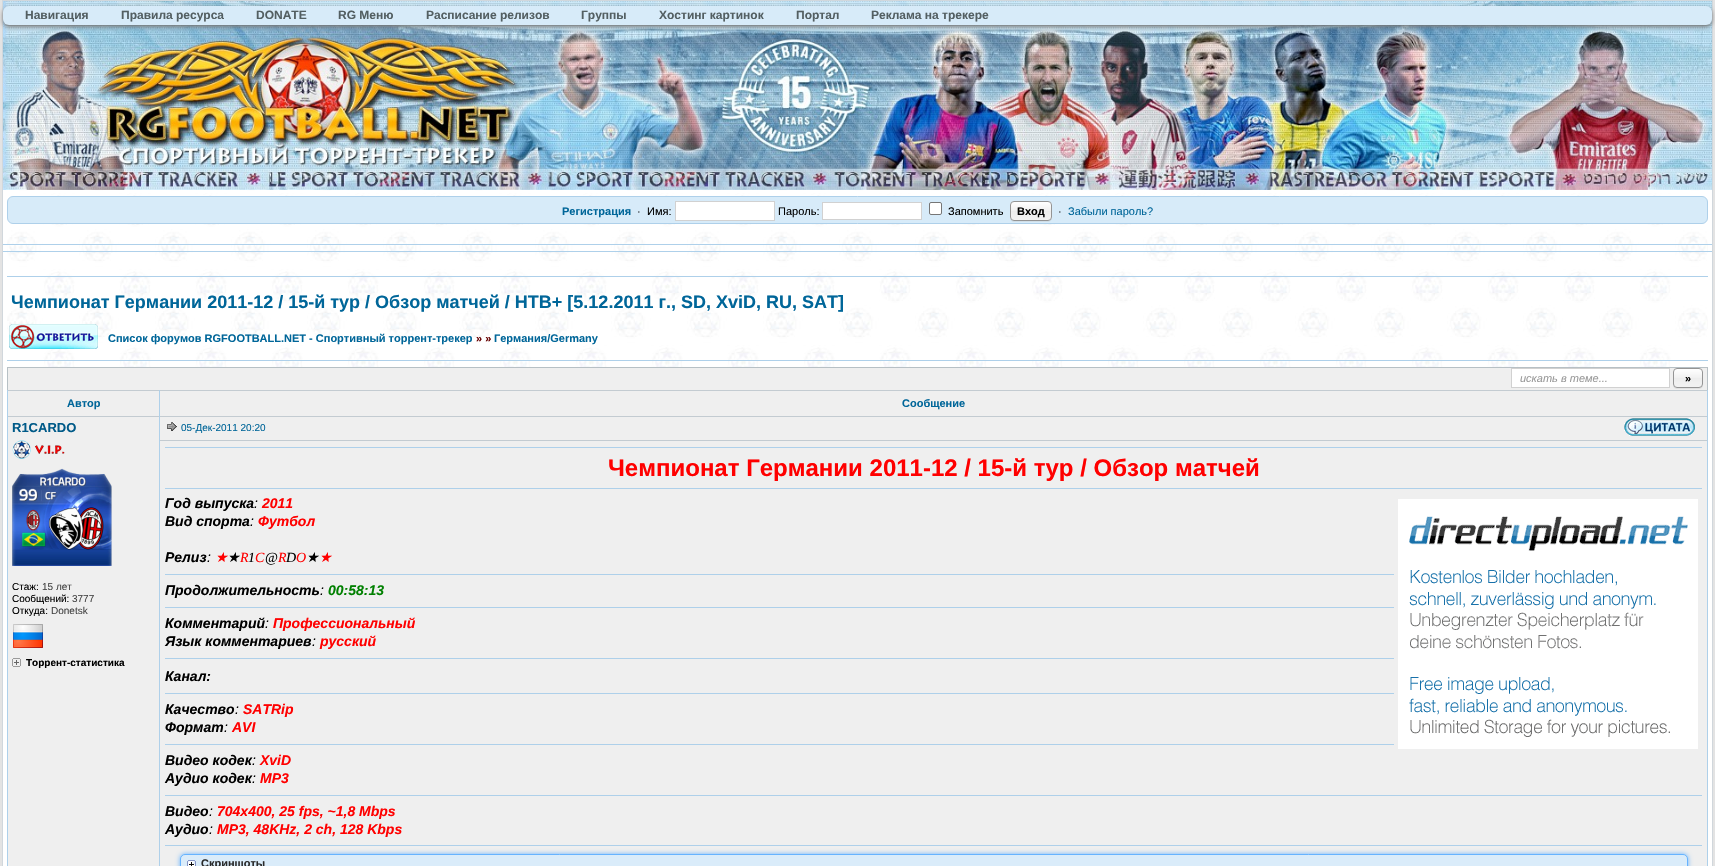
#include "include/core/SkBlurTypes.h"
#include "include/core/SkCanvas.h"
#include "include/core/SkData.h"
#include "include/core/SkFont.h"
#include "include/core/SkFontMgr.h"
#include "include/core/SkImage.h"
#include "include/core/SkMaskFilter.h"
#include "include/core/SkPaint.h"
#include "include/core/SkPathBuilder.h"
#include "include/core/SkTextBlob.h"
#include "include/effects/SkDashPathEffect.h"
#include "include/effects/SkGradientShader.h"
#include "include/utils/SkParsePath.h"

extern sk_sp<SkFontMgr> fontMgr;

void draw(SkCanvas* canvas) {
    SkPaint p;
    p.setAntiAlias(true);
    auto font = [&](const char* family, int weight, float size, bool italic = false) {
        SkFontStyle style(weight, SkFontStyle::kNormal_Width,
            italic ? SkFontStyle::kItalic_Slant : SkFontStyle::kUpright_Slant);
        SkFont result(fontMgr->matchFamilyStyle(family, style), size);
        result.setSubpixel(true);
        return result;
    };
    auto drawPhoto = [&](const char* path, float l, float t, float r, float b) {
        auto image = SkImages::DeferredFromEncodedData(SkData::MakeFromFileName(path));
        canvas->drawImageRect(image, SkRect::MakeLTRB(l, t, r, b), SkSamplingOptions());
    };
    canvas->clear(0xFFE3E3E3);
    p.setColor(0xFFFFFFFF);
    canvas->drawRect(SkRect::MakeLTRB(3, 190, 1712, 866), p);
    drawPhoto("media/1.png", 7, 190, 1708, 367);
    p.setStyle(SkPaint::kStroke_Style);
    p.setStrokeWidth(1);
    p.setColor(0xFFD1D7DC);
    canvas->drawRect(SkRect::MakeLTRB(2.5f, 0.5f, 1712.5f, 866.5f), p);
    drawPhoto("media/2.png", 3, 1, 1712, 190);
    p.setStyle(SkPaint::kFill_Style);
    p.setColor(0xFF777777);
    p.setMaskFilter(SkMaskFilter::MakeBlur(kNormal_SkBlurStyle, 2));
    canvas->drawRoundRect(SkRect::MakeLTRB(3, 8, 1712, 27), 6, 6, p);
    p.setMaskFilter(nullptr);
    p.setColor(0xFFD7EBF9);
    canvas->drawRoundRect(SkRect::MakeLTRB(3, 6, 1712, 25), 6, 6, p);
    auto font1 = font("Liberation Sans", 700, 12);
    p.setColor(0xFF535F62);
    {
        const struct { const char* s; float x, y; } items[] = {
            {"Навигация", 25, 19},
            {"Правила ресурса", 121, 19},
            {"DONATE", 256, 19},
            {"RG Меню", 338, 19},
            {"Расписание релизов", 426, 19},
            {"Группы", 581, 19},
            {"Хостинг картинок", 659, 19},
            {"Портал", 796, 19},
            {"Реклама на трекере", 871, 19},
        };
        for (auto [s, x, y] : items) {
            canvas->drawString(s, x, y, font1, p);
        }
    }
    p.setColor(0xFFD7EBF9);
    canvas->drawRoundRect(SkRect::MakeLTRB(7.5f, 196.5f, 1707.5f, 223.5f), 5.5f, 5.5f, p);
    p.setStyle(SkPaint::kStroke_Style);
    p.setColor(0xFFAED0EA);
    canvas->drawRoundRect(SkRect::MakeLTRB(7.5f, 196.5f, 1707.5f, 223.5f), 5.5f, 5.5f, p);
    auto font2 = font("Liberation Sans", 700, 11);
    p.setStyle(SkPaint::kFill_Style);
    p.setColor(0xFF006699);
    canvas->drawString("Регистрация", 562, 215, font2, p);
    auto font3 = font("Liberation Sans", 400, 11);
    p.setColor(0xFF000000);
    canvas->drawString("·", 637, 215, font3, p);
    canvas->drawString("Имя:", 647, 215, font3, p);
    p.setColor(0xFFFFFFFF);
    canvas->drawRect(SkRect::MakeLTRB(675.5f, 201.5f, 774.5f, 220.5f), p);
    p.setStyle(SkPaint::kStroke_Style);
    p.setColor(0xFFD1D1D1);
    canvas->drawRect(SkRect::MakeLTRB(675.5f, 201.5f, 774.5f, 220.5f), p);
    p.setStyle(SkPaint::kFill_Style);
    p.setColor(0xFF000000);
    canvas->drawString("Пароль:", 778, 215, font3, p);
    p.setColor(0xFFFFFFFF);
    canvas->drawRect(SkRect::MakeLTRB(822.5f, 202.5f, 921.5f, 219.5f), p);
    p.setStyle(SkPaint::kStroke_Style);
    p.setColor(0xFFD1D1D1);
    canvas->drawRect(SkRect::MakeLTRB(822.5f, 202.5f, 921.5f, 219.5f), p);
    p.setStyle(SkPaint::kFill_Style);
    p.setColor(0xFFFFFFFF);
    canvas->drawRoundRect(SkRect::MakeLTRB(929.5f, 202.5f, 941.5f, 214.5f), 1.5f, 1.5f, p);
    p.setStyle(SkPaint::kStroke_Style);
    p.setColor(0xFF767676);
    canvas->drawRoundRect(SkRect::MakeLTRB(929.5f, 202.5f, 941.5f, 214.5f), 1.5f, 1.5f, p);
    p.setStyle(SkPaint::kFill_Style);
    p.setColor(0xFF000000);
    canvas->drawString("Запомнить", 948, 215, font3, p);
    p.setColor(0xFFD0DEE7);
    canvas->drawPath(SkPathBuilder().moveTo(1010, 217).cubicTo(1010, 223, 1015, 222, 1020, 222).lineTo(1042, 222).cubicTo(1047, 222, 1052, 223, 1052, 217).cubicTo(1052, 219, 1050, 221, 1048, 221).lineTo(1014, 221).cubicTo(1012, 221, 1010, 219, 1010, 217).close().detach(), p);
    canvas->save();
    canvas->clipPath(SkPathBuilder().moveTo(1014, 201).lineTo(1048, 201).cubicTo(1050, 201, 1052, 203, 1052, 205).lineTo(1052, 217).cubicTo(1052, 219, 1050, 221, 1048, 221).lineTo(1014, 221).cubicTo(1012, 221, 1010, 219, 1010, 217).lineTo(1010, 205).cubicTo(1010, 203, 1012, 201, 1014, 201).close().detach(), true);
    {
        const SkColor colors[] = {0xFFFFFFFF, 0xFFF0F0F0, 0xFFEDEDED, 0xFFF2F2F2};
        const float stops[] = {0, 0.5f, 0.5f, 1};
        const SkPoint ends[] = {{1011, 202}, {1011, 220}};
        p.setShader(SkGradientShader::MakeLinear(ends, colors, stops, 4, SkTileMode::kClamp));
        p.setAlpha(255);
    }
    canvas->drawRect(SkRect::MakeLTRB(1010, 202, 1052, 220), p);
    canvas->restore();
    p.setStyle(SkPaint::kStroke_Style);
    p.setShader(nullptr);
    p.setColor(0xFF949494);
    canvas->drawRoundRect(SkRect::MakeLTRB(1010.5f, 201.5f, 1051.5f, 220.5f), 3.5f, 3.5f, p);
    p.setStyle(SkPaint::kFill_Style);
    p.setColor(0xFF000000);
    canvas->drawString("Вход", 1017, 215, font2, p);
    canvas->drawString("·", 1058, 215, font3, p);
    p.setColor(0xFF006699);
    canvas->drawString("Забыли пароль?", 1068, 215, font3, p);
    {
        const struct { float l, t, r, b; SkColor color; } items[] = {
            {3, 244, 1712, 245, 0xFFAED0EA},
            {3, 251, 1712, 252, 0xFFAED0EA},
            {7, 276, 1708, 277, 0xFFAED0EA},
        };
        for (auto [l, t, r, b, color] : items) {
            p.setColor(color);
            canvas->drawRect(SkRect::MakeLTRB(l, t, r, b), p);
        }
    }
    auto font4 = font("Liberation Sans", 700, 18);
    p.setColor(0xFF006699);
    canvas->drawString("Чемпионат Германии 2011-12 / 15-й тур / Обзор матчей / НТВ+ [5.12.2011 г., SD, XviD, RU, SAT]", 11, 308, font4, p);
    drawPhoto("media/3.png", 9, 324, 98, 349);
    canvas->drawString("Список форумов RGFOOTBALL.NET - Спортивный торрент-трекер", 108, 342, font2, p);
    p.setColor(0xFF660000);
    canvas->drawString("» »", 476, 342, font2, p);
    p.setColor(0xFF006699);
    canvas->drawString("Германия/Germany", 494, 342, font2, p);
    {
        const struct { float l, t, r, b; SkColor color; } items[] = {
            {7, 360, 1708, 361, 0xFFAED0EA},
            {7, 367, 1708, 368, 0xFFB7C0C5},
            {1707, 367, 1708, 390, 0xFFB7C0C5},
            {7, 367, 8, 390, 0xFFB7C0C5},
            {8, 368, 1707, 390, 0xFFEFEFEF},
        };
        for (auto [l, t, r, b, color] : items) {
            p.setColor(color);
            canvas->drawRect(SkRect::MakeLTRB(l, t, r, b), p);
        }
    }
    p.setColor(0xFFFFFFFF);
    canvas->drawRect(SkRect::MakeLTRB(1511.5f, 368.5f, 1669.5f, 387.5f), p);
    p.setStyle(SkPaint::kStroke_Style);
    p.setColor(0xFFD1D1D1);
    canvas->drawRect(SkRect::MakeLTRB(1511.5f, 368.5f, 1669.5f, 387.5f), p);
    auto font5 = font("Liberation Sans", 400, 11, true);
    p.setStyle(SkPaint::kFill_Style);
    p.setColor(0xFF999999);
    canvas->drawString("искать в теме...", 1520, 382, font5, p);
    p.setColor(0xFFE0E0E0);
    canvas->drawPath(SkPathBuilder().moveTo(1673, 384).cubicTo(1673, 389.5f, 1676.5f, 389, 1680.5f, 389).lineTo(1695.5f, 389).cubicTo(1699.5f, 389, 1703, 389.5f, 1703, 384).cubicTo(1703, 386, 1701, 388, 1699, 388).lineTo(1677, 388).cubicTo(1675, 388, 1673, 386, 1673, 384).close().detach(), p);
    canvas->save();
    canvas->clipPath(SkPathBuilder().moveTo(1677, 368).lineTo(1699, 368).cubicTo(1701, 368, 1703, 370, 1703, 372).lineTo(1703, 384).cubicTo(1703, 386, 1701, 388, 1699, 388).lineTo(1677, 388).cubicTo(1675, 388, 1673, 386, 1673, 384).lineTo(1673, 372).cubicTo(1673, 370, 1675, 368, 1677, 368).close().detach(), true);
    {
        const SkColor colors[] = {0xFFFFFFFF, 0xFFF0F0F0, 0xFFEDEDED, 0xFFF2F2F2};
        const float stops[] = {0, 0.5f, 0.5f, 1};
        const SkPoint ends[] = {{1674, 369}, {1674, 387}};
        p.setShader(SkGradientShader::MakeLinear(ends, colors, stops, 4, SkTileMode::kClamp));
        p.setAlpha(255);
    }
    canvas->drawRect(SkRect::MakeLTRB(1673, 369, 1703, 387), p);
    canvas->restore();
    p.setStyle(SkPaint::kStroke_Style);
    p.setShader(nullptr);
    p.setColor(0xFF949494);
    canvas->drawRoundRect(SkRect::MakeLTRB(1673.5f, 368.5f, 1702.5f, 387.5f), 3.5f, 3.5f, p);
    p.setStyle(SkPaint::kFill_Style);
    p.setColor(0xFF000000);
    canvas->drawString("»", 1685, 382, font2, p);
    {
        const struct { float l, t, r, b; SkColor color; } items[] = {
            {1707, 390, 1708, 866, 0xFFAED0EA},
            {7, 390, 8, 866, 0xFFAED0EA},
            {8, 391, 159, 416, 0xFFEFEFEF},
            {8, 390, 1707, 391, 0xFFC3CBD1},
            {159, 390, 160, 416, 0xFFAED0EA},
        };
        for (auto [l, t, r, b, color] : items) {
            p.setColor(color);
            canvas->drawRect(SkRect::MakeLTRB(l, t, r, b), p);
        }
    }
    p.setColor(0xFF006699);
    canvas->drawString("Автор", 67, 407, font2, p);
    p.setColor(0xFFEFEFEF);
    canvas->drawRect(SkRect::MakeLTRB(160, 391, 1707, 416), p);
    p.setColor(0xFF006699);
    canvas->drawString("Сообщение", 902, 407, font2, p);
    {
        const struct { float l, t, r, b; SkColor color; } items[] = {
            {8, 417, 1707, 866, 0xFFEFEFEF},
            {8, 416, 1707, 417, 0xFFC3CBD1},
            {159, 416, 160, 866, 0xFFAED0EA},
        };
        for (auto [l, t, r, b, color] : items) {
            p.setColor(color);
            canvas->drawRect(SkRect::MakeLTRB(l, t, r, b), p);
        }
    }
    auto font6 = font("Liberation Sans", 700, 13);
    p.setColor(0xFF005A88);
    canvas->drawString("R1CARDO", 12, 432, font6, p);
    drawPhoto("media/4.png", 12, 440, 65, 459);
    drawPhoto("media/5.png", 12, 468, 112, 566);
    auto font7 = font("Liberation Sans", 400, 10);
    p.setColor(0xFF000000);
    canvas->drawString("Стаж:", 12, 590, font7, p);
    p.setColor(0xFF444444);
    canvas->drawString("15 лет", 42, 590, font7, p);
    p.setColor(0xFF000000);
    canvas->drawString("Сообщений:", 12, 602, font7, p);
    p.setColor(0xFF444444);
    canvas->drawString("3777", 72, 602, font7, p);
    p.setColor(0xFF000000);
    canvas->drawString("Откуда:", 12, 614, font7, p);
    p.setColor(0xFF444444);
    canvas->drawString("Donetsk", 51, 614, font7, p);
    drawPhoto("media/6.png", 13, 624, 43, 648);
    drawPhoto("media/7.png", 12, 658, 21, 667);
    auto font8 = font("Liberation Sans", 700, 10);
    p.setColor(0xFF000000);
    canvas->drawString("Торрент-статистика", 26, 666, font8, p);
    p.setColor(0xFFC3CBD1);
    canvas->drawRect(SkRect::MakeLTRB(160, 440, 1707, 441), p);
    drawPhoto("media/8.png", 167, 422, 177, 431);
    p.setColor(0xFF006699);
    canvas->drawString("05-Дек-2011 20:20", 181, 431, font7, p);
    drawPhoto("media/9.png", 1624, 418, 1695, 436);
    p.setColor(0xFFAED0EA);
    canvas->drawRect(SkRect::MakeLTRB(165, 447, 1702, 448), p);
    auto font9 = font("Liberation Sans", 700, 24);
    p.setColor(0xFFFF0000);
    canvas->drawString("Чемпионат Германии 2011-12 / 15-й тур / Обзор матчей", 608, 476, font9, p);
    p.setColor(0xFFAED0EA);
    canvas->drawRect(SkRect::MakeLTRB(165, 488, 1702, 489), p);
    auto font10 = font("Liberation Sans", 700, 14, true);
    p.setColor(0xFF000000);
    canvas->drawString("Год выпуска", 165, 508, font10, p);
    auto font11 = font("Liberation Sans", 400, 14, true);
    canvas->drawString(":", 254, 508, font11, p);
    p.setColor(0xFFFF0000);
    canvas->drawString("2011", 262, 508, font10, p);
    p.setColor(0xFF000000);
    canvas->drawString("Вид спорта", 165, 526, font10, p);
    canvas->drawString(":", 250, 526, font11, p);
    p.setColor(0xFFFF0000);
    canvas->drawString("Футбол", 258, 526, font10, p);
    p.setColor(0xFF000000);
    canvas->drawString("Релиз", 165, 562, font10, p);
    canvas->drawString(":", 207, 562, font11, p);
    auto font12 = font("DejaVu Sans", 400, 14, true);
    p.setColor(0xFFFF0000);
    canvas->drawString("★", 215, 562, font12, p);
    p.setColor(0xFF000000);
    canvas->drawString("★", 227, 562, font12, p);
    auto font13 = font("Liberation Serif", 400, 14, true);
    p.setColor(0xFFFF0000);
    canvas->drawString("R", 240, 562, font13, p);
    p.setColor(0xFF000000);
    canvas->drawString("1", 248, 562, font13, p);
    p.setColor(0xFFFF0000);
    canvas->drawString("C", 255, 562, font13, p);
    p.setColor(0xFF000000);
    canvas->drawString("@", 265, 562, font13, p);
    p.setColor(0xFFFF0000);
    canvas->drawString("R", 278, 562, font13, p);
    p.setColor(0xFF000000);
    canvas->drawString("D", 286, 562, font13, p);
    p.setColor(0xFFFF0000);
    canvas->drawString("O", 296, 562, font13, p);
    p.setColor(0xFF000000);
    canvas->drawString("★", 306, 562, font12, p);
    p.setColor(0xFFFF0000);
    canvas->drawString("★", 319, 562, font12, p);
    p.setColor(0xFFAED0EA);
    canvas->drawRect(SkRect::MakeLTRB(165, 574, 1394, 575), p);
    p.setColor(0xFF000000);
    canvas->drawString("Продолжительность", 165, 595, font10, p);
    canvas->drawString(":", 320, 595, font11, p);
    p.setColor(0xFF008000);
    canvas->drawString("00:58:13", 328, 595, font10, p);
    p.setColor(0xFFAED0EA);
    canvas->drawRect(SkRect::MakeLTRB(165, 607, 1394, 608), p);
    p.setColor(0xFF000000);
    canvas->drawString("Комментарий", 165, 628, font10, p);
    canvas->drawString(":", 265, 628, font11, p);
    p.setColor(0xFFFF0000);
    canvas->drawString("Профессиональный", 273, 628, font10, p);
    p.setColor(0xFF000000);
    canvas->drawString("Язык комментариев", 165, 646, font10, p);
    canvas->drawString(":", 312, 646, font11, p);
    p.setColor(0xFFFF0000);
    canvas->drawString("русский", 320, 646, font10, p);
    p.setColor(0xFFAED0EA);
    canvas->drawRect(SkRect::MakeLTRB(165, 658, 1394, 659), p);
    p.setColor(0xFF000000);
    canvas->drawString("Канал:", 165, 681, font10, p);
    p.setColor(0xFFAED0EA);
    canvas->drawRect(SkRect::MakeLTRB(165, 693, 1394, 694), p);
    p.setColor(0xFF000000);
    canvas->drawString("Качество", 165, 714, font10, p);
    canvas->drawString(":", 235, 714, font11, p);
    p.setColor(0xFFFF0000);
    canvas->drawString("SATRip", 243, 714, font10, p);
    p.setColor(0xFF000000);
    canvas->drawString("Формат", 165, 732, font10, p);
    canvas->drawString(":", 224, 732, font11, p);
    p.setColor(0xFFFF0000);
    canvas->drawString("AVI", 232, 732, font10, p);
    p.setColor(0xFFAED0EA);
    canvas->drawRect(SkRect::MakeLTRB(165, 744, 1394, 745), p);
    p.setColor(0xFF000000);
    canvas->drawString("Видео кодек", 165, 765, font10, p);
    canvas->drawString(":", 252, 765, font11, p);
    p.setColor(0xFFFF0000);
    canvas->drawString("XviD", 260, 765, font10, p);
    p.setColor(0xFF000000);
    canvas->drawString("Аудио кодек", 165, 783, font10, p);
    canvas->drawString(":", 252, 783, font11, p);
    p.setColor(0xFFFF0000);
    canvas->drawString("MP3", 260, 783, font10, p);
    p.setColor(0xFFAED0EA);
    canvas->drawRect(SkRect::MakeLTRB(165, 795, 1702, 796), p);
    p.setColor(0xFF000000);
    canvas->drawString("Видео", 165, 816, font10, p);
    canvas->drawString(":", 209, 816, font11, p);
    p.setColor(0xFFFF0000);
    canvas->drawString("704x400, 25 fps, ~1,8 Mbps", 217, 816, font10, p);
    p.setColor(0xFF000000);
    canvas->drawString("Аудио", 165, 834, font10, p);
    canvas->drawString(":", 209, 834, font11, p);
    p.setColor(0xFFFF0000);
    canvas->drawString("MP3, 48KHz, 2 ch, 128 Kbps", 217, 834, font10, p);
    p.setColor(0xFF66B3FF);
    p.setMaskFilter(SkMaskFilter::MakeBlur(kNormal_SkBlurStyle, 2.5f));
    canvas->drawRoundRect(SkRect::MakeLTRB(180, 854, 1688, 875), 5, 5, p);
    p.setMaskFilter(nullptr);
    p.setColor(0xFFAED0EA);
    canvas->drawRect(SkRect::MakeLTRB(165, 845, 1702, 846), p);
    drawPhoto("media/10.png", 1398, 499, 1698, 749);
    p.setColor(0xFFDAECFA);
    canvas->drawRoundRect(SkRect::MakeLTRB(180.5f, 854.5f, 1687.5f, 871.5f), 4.5f, 4.5f, p);
    p.setStyle(SkPaint::kStroke_Style);
    p.setColor(0xFF66B3FF);
    canvas->drawRoundRect(SkRect::MakeLTRB(180.5f, 854.5f, 1687.5f, 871.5f), 4.5f, 4.5f, p);
    drawPhoto("media/11.png", 187, 860, 196, 866);
    p.setStyle(SkPaint::kFill_Style);
    p.setColor(0xFF2A2A2A);
    canvas->drawString("Скриншоты", 201, 867, font2, p);
}
